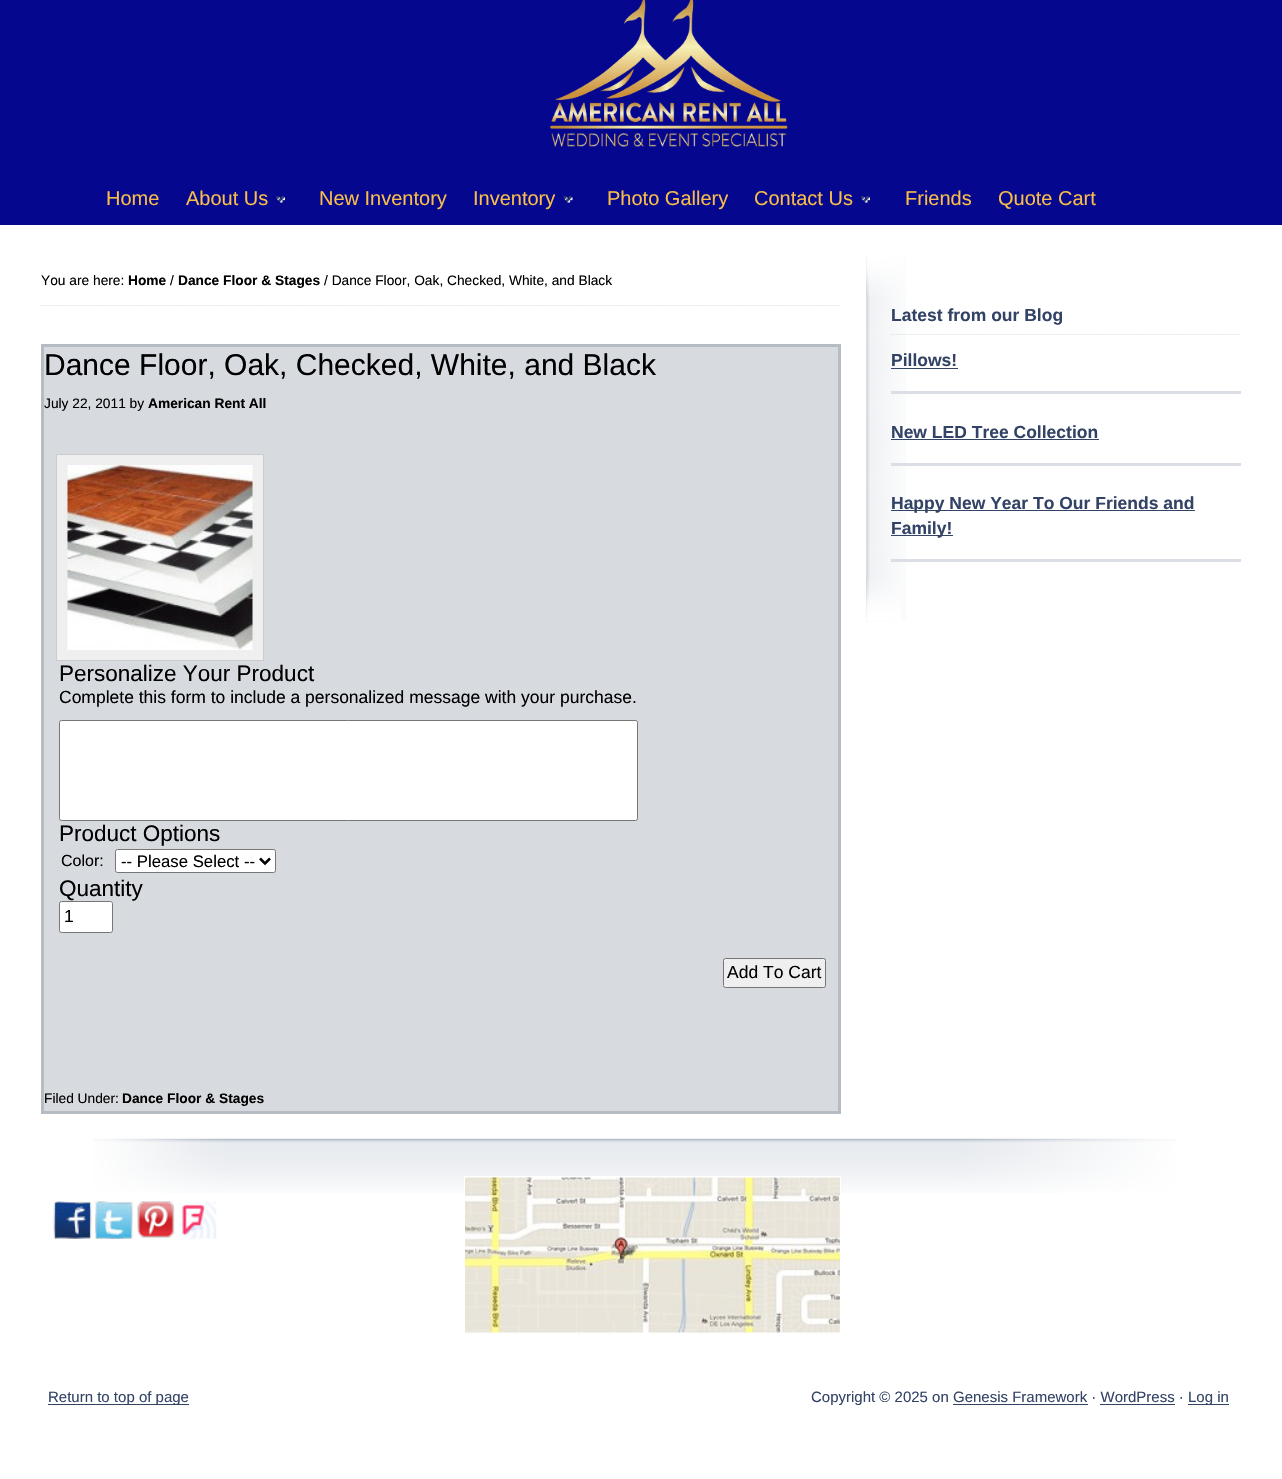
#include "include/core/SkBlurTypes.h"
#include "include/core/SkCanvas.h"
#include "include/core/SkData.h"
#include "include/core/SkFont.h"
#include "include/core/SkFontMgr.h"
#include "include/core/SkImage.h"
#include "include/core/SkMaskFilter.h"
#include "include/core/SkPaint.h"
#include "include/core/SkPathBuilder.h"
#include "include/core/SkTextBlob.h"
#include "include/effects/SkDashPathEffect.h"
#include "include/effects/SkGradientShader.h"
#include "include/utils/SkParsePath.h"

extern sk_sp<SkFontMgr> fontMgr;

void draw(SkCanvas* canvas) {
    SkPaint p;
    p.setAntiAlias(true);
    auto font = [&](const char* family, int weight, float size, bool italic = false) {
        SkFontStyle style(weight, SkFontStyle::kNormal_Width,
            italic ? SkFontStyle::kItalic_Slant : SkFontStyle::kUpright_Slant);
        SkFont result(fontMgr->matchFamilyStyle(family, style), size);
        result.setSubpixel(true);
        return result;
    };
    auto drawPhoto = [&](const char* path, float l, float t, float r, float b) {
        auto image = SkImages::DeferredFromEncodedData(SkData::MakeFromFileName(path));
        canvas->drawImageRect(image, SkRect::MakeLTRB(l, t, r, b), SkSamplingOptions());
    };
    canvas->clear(0xFFFFFFFF);
    p.setColor(0xFF05078E);
    canvas->drawRect(SkRect::MakeLTRB(0, 0, 1282, 225), p);
    drawPhoto("media/1.png", 550, 0, 788, 147);
    auto font1 = font("Liberation Sans", 400, 20);
    p.setColor(0xFFF9BD4A);
    canvas->drawString("Home", 106, 205, font1, p);
    canvas->drawString("About Us", 186, 205, font1, p);
    drawPhoto("media/2.png", 276, 196, 285, 203);
    canvas->drawString("New Inventory", 319, 205, font1, p);
    canvas->drawString("Inventory", 473, 205, font1, p);
    drawPhoto("media/3.png", 563, 196, 573, 203);
    canvas->drawString("Photo Gallery", 607, 205, font1, p);
    canvas->drawString("Contact Us", 754, 205, font1, p);
    drawPhoto("media/2.png", 861, 196, 870, 203);
    canvas->drawString("Friends", 905, 205, font1, p);
    canvas->drawString("Quote Cart", 998, 205, font1, p);
    p.setStyle(SkPaint::kStroke_Style);
    p.setStrokeWidth(1.2f);
    p.setColor(0xFFDBDEE4);
    p.setPathEffect(SkDashPathEffect::Make({{1.25f, 1.25f}}, 0));
    canvas->drawPath(SkPathBuilder().moveTo(41, 305.5f).lineTo(841, 305.5f).detach(), p);
    p.setPathEffect(nullptr);
    auto font2 = font("Liberation Sans", 400, 13.75f);
    p.setStyle(SkPaint::kFill_Style);
    p.setColor(0xFF000000);
    canvas->drawString("You are here:", 41, 285, font2, p);
    auto font3 = font("Liberation Sans", 700, 13.75f);
    canvas->drawString("Home", 128, 285, font3, p);
    canvas->drawString("/", 170, 285, font2, p);
    canvas->drawString("Dance Floor & Stages", 178, 285, font3, p);
    canvas->drawString("/ Dance Floor, Oak, Checked, White, and Black", 324, 285, font2, p);
    p.setColor(0xFFD7DBE0);
    canvas->drawRect(SkRect::MakeLTRB(42.5f, 345.5f, 839.5f, 1112.5f), p);
    p.setStyle(SkPaint::kStroke_Style);
    p.setStrokeWidth(3);
    p.setColor(0xFFB6BCC3);
    canvas->drawRect(SkRect::MakeLTRB(42.5f, 345.5f, 839.5f, 1112.5f), p);
    auto font4 = font("Liberation Sans", 400, 30);
    p.setStyle(SkPaint::kFill_Style);
    p.setColor(0xFF000000);
    canvas->drawString("Dance Floor, Oak, Checked, White, and Black", 44, 375, font4, p);
    canvas->drawString("July 22, 2011 by", 44, 408, font2, p);
    canvas->drawString("American Rent All", 148, 408, font3, p);
    p.setColor(0xFFEFEFEF);
    canvas->drawRect(SkRect::MakeLTRB(56.5f, 454.5f, 263.5f, 660.5f), p);
    p.setStyle(SkPaint::kStroke_Style);
    p.setStrokeWidth(1);
    p.setColor(0xFFCCCCCC);
    canvas->drawRect(SkRect::MakeLTRB(56.5f, 454.5f, 263.5f, 660.5f), p);
    drawPhoto("media/4.png", 67, 465, 253, 650);
    auto font5 = font("Liberation Sans", 400, 22.5f);
    p.setStyle(SkPaint::kFill_Style);
    p.setColor(0xFF000000);
    canvas->drawString("Personalize Your Product", 59, 681, font5, p);
    auto font6 = font("Liberation Sans", 400, 17.5f);
    canvas->drawString("Complete this form to include a personalized message with your purchase.", 59, 703, font6, p);
    p.setColor(0xFFFFFFFF);
    canvas->drawRoundRect(SkRect::MakeLTRB(59.5f, 720.5f, 637.5f, 820.5f), 2, 2, p);
    p.setStyle(SkPaint::kStroke_Style);
    p.setColor(0xFF767676);
    canvas->drawRoundRect(SkRect::MakeLTRB(59.5f, 720.5f, 637.5f, 820.5f), 2, 2, p);
    p.setStyle(SkPaint::kFill_Style);
    p.setColor(0xFF000000);
    canvas->drawString("Product Options", 59, 841, font5, p);
    auto font7 = font("Liberation Sans", 400, 16);
    canvas->drawString("Color:", 61, 866, font7, p);
    p.setColor(0xFFFFFFFF);
    canvas->drawRoundRect(SkRect::MakeLTRB(115.5f, 849.5f, 275.5f, 872.5f), 2, 2, p);
    p.setStyle(SkPaint::kStroke_Style);
    p.setColor(0xFF767676);
    canvas->drawRoundRect(SkRect::MakeLTRB(115.5f, 849.5f, 275.5f, 872.5f), 2, 2, p);
    p.setStrokeWidth(2.5f);
    p.setColor(0xFF000000);
    canvas->drawPath(SkPathBuilder().moveTo(260, 858.5f).lineTo(265, 863.5f).lineTo(270, 858.5f).detach(), p);
    auto font8 = font("Liberation Sans", 400, 16.75f);
    p.setStyle(SkPaint::kFill_Style);
    canvas->drawString("-- Please Select --", 121, 867, font8, p);
    canvas->drawString("Quantity", 59, 896, font5, p);
    p.setColor(0xFFFFFFFF);
    canvas->drawRoundRect(SkRect::MakeLTRB(59.5f, 901.5f, 112.5f, 932.5f), 2, 2, p);
    p.setStyle(SkPaint::kStroke_Style);
    p.setStrokeWidth(1);
    p.setColor(0xFF767676);
    canvas->drawRoundRect(SkRect::MakeLTRB(59.5f, 901.5f, 112.5f, 932.5f), 2, 2, p);
    p.setStyle(SkPaint::kFill_Style);
    p.setColor(0xFF000000);
    canvas->drawString("1", 64, 922, font6, p);
    p.setColor(0xFFEFEFEF);
    canvas->drawRoundRect(SkRect::MakeLTRB(723.5f, 958.5f, 825.5f, 987.5f), 2, 2, p);
    p.setStyle(SkPaint::kStroke_Style);
    p.setColor(0xFF767676);
    canvas->drawRoundRect(SkRect::MakeLTRB(723.5f, 958.5f, 825.5f, 987.5f), 2, 2, p);
    p.setStyle(SkPaint::kFill_Style);
    p.setColor(0xFF000000);
    canvas->drawString("Add To Cart", 727, 978, font6, p);
    canvas->drawString("Filed Under:", 44, 1103, font2, p);
    canvas->drawString("Dance Floor & Stages", 122, 1103, font3, p);
    drawPhoto("media/5.png", 866, 255, 906, 622);
    drawPhoto("media/6.png", 866, 255, 905, 296);
    p.setStyle(SkPaint::kStroke_Style);
    p.setStrokeWidth(1.2f);
    p.setColor(0xFFDBDEE4);
    p.setPathEffect(SkDashPathEffect::Make({{1.25f, 1.25f}}, 0));
    canvas->drawPath(SkPathBuilder().moveTo(891, 334.5f).lineTo(1241, 334.5f).detach(), p);
    p.setPathEffect(nullptr);
    auto font9 = font("Liberation Sans", 700, 17.5f);
    p.setStyle(SkPaint::kFill_Style);
    p.setColor(0xFF334366);
    canvas->drawString("Latest from our Blog", 891, 321, font9, p);
    p.setColor(0xFFDBDEE4);
    canvas->drawRect(SkRect::MakeLTRB(891, 391, 1241, 394), p);
    p.setColor(0xFF334366);
    canvas->drawString("Pillows!", 891, 366, font9, p);
    canvas->drawRect(SkRect::MakeLTRB(891, 368, 958, 369), p);
    p.setColor(0xFFDBDEE4);
    canvas->drawRect(SkRect::MakeLTRB(891, 463, 1241, 466), p);
    p.setColor(0xFF334366);
    canvas->drawString("New LED Tree Collection", 891, 438, font9, p);
    {
        const struct { float l, t, r, b; SkColor color; } items[] = {
            {891, 439, 1099, 440, 0xFF334366},
            {891, 559, 1241, 562, 0xFFDBDEE4},
            {891, 510, 1195, 511, 0xFF334366},
        };
        for (auto [l, t, r, b, color] : items) {
            p.setColor(color);
            canvas->drawRect(SkRect::MakeLTRB(l, t, r, b), p);
        }
    }
    canvas->drawString("Happy New Year To Our Friends and", 891, 509, font9, p);
    canvas->drawRect(SkRect::MakeLTRB(891, 535, 953, 536), p);
    canvas->drawString("Family!", 891, 534, font9, p);
    drawPhoto("media/7.png", 866, 580, 901, 621);
    drawPhoto("media/8.png", 93, 1138, 1177, 1193);
    drawPhoto("media/9.png", 53, 1201, 92, 1239);
    drawPhoto("media/10.png", 95, 1201, 133, 1239);
    drawPhoto("media/11.png", 137, 1201, 175, 1238);
    drawPhoto("media/12.png", 179, 1201, 217, 1239);
    p.setColor(0xFFFFFFFF);
    canvas->drawRect(SkRect::MakeLTRB(464, 1176, 841, 1193), p);
    drawPhoto("media/13.png", 465, 1177, 840, 1333);
    p.setColor(0xFF334366);
    canvas->drawRect(SkRect::MakeLTRB(48, 1404, 189, 1405), p);
    auto font10 = font("Liberation Sans", 400, 15);
    canvas->drawString("Return to top of page", 48, 1402, font10, p);
    canvas->drawString("Copyright © 2025 on Genesis Framework · WordPress ·", 811, 1402, font10, p);
    canvas->drawRect(SkRect::MakeLTRB(1188, 1404, 1229, 1405), p);
    canvas->drawString("Log in", 1188, 1402, font10, p);
    canvas->drawRect(SkRect::MakeLTRB(953, 1404, 1088, 1405), p);
    canvas->drawRect(SkRect::MakeLTRB(1100, 1404, 1175, 1405), p);
}
